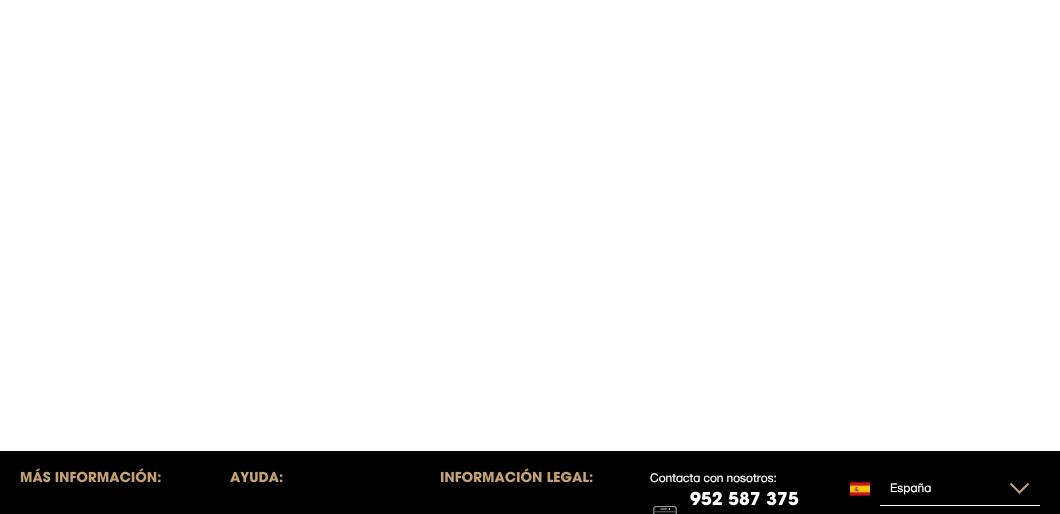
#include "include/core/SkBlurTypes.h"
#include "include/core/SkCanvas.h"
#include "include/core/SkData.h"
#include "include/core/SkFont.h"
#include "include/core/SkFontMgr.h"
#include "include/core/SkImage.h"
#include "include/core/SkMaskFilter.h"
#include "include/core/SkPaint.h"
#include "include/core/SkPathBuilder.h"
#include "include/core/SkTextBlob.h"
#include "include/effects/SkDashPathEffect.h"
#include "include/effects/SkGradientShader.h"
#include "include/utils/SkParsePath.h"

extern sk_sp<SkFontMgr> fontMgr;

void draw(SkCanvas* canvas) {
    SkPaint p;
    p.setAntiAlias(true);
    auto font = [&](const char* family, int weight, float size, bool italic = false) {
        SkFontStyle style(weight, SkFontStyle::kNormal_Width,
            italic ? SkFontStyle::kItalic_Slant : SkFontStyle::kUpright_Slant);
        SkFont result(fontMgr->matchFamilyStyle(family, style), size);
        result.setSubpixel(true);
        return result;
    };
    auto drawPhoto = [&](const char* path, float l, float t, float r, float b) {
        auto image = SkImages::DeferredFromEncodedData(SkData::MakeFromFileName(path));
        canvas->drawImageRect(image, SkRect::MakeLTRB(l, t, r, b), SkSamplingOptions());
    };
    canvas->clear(0xFFFFFFFF);
    p.setColor(0xFF000000);
    canvas->drawRect(SkRect::MakeLTRB(0, 451, 1060, 514), p);
    drawPhoto("media/1.png", 20, 468, 161, 483);
    drawPhoto("media/2.png", 230, 471, 283, 483);
    drawPhoto("media/3.png", 440, 468, 593, 483);
    auto font1 = font("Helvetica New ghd", 400, 12);
    p.setColor(0xFFFFFFFF);
    canvas->drawString("Contacta con nosotros:", 650, 482, font1, p);
    drawPhoto("media/4.png", 690, 491, 799, 506);
    drawPhoto("media/5.png", 653, 506, 677, 514);
    drawPhoto("media/6.png", 850, 482, 870, 496);
    p.setStyle(SkPaint::kStroke_Style);
    p.setStrokeWidth(2);
    p.setColor(0xFFC6A270);
    canvas->drawPath(SkPathBuilder().moveTo(1028.5f, 483.5f).lineTo(1019.5f, 492.5f).lineTo(1010.5f, 483.5f).detach(), p);
    p.setStyle(SkPaint::kFill_Style);
    p.setColor(0xFFFFFFFF);
    canvas->drawRect(SkRect::MakeLTRB(880, 505, 1040, 506), p);
    canvas->drawString("España", 890, 492, font1, p);
}
